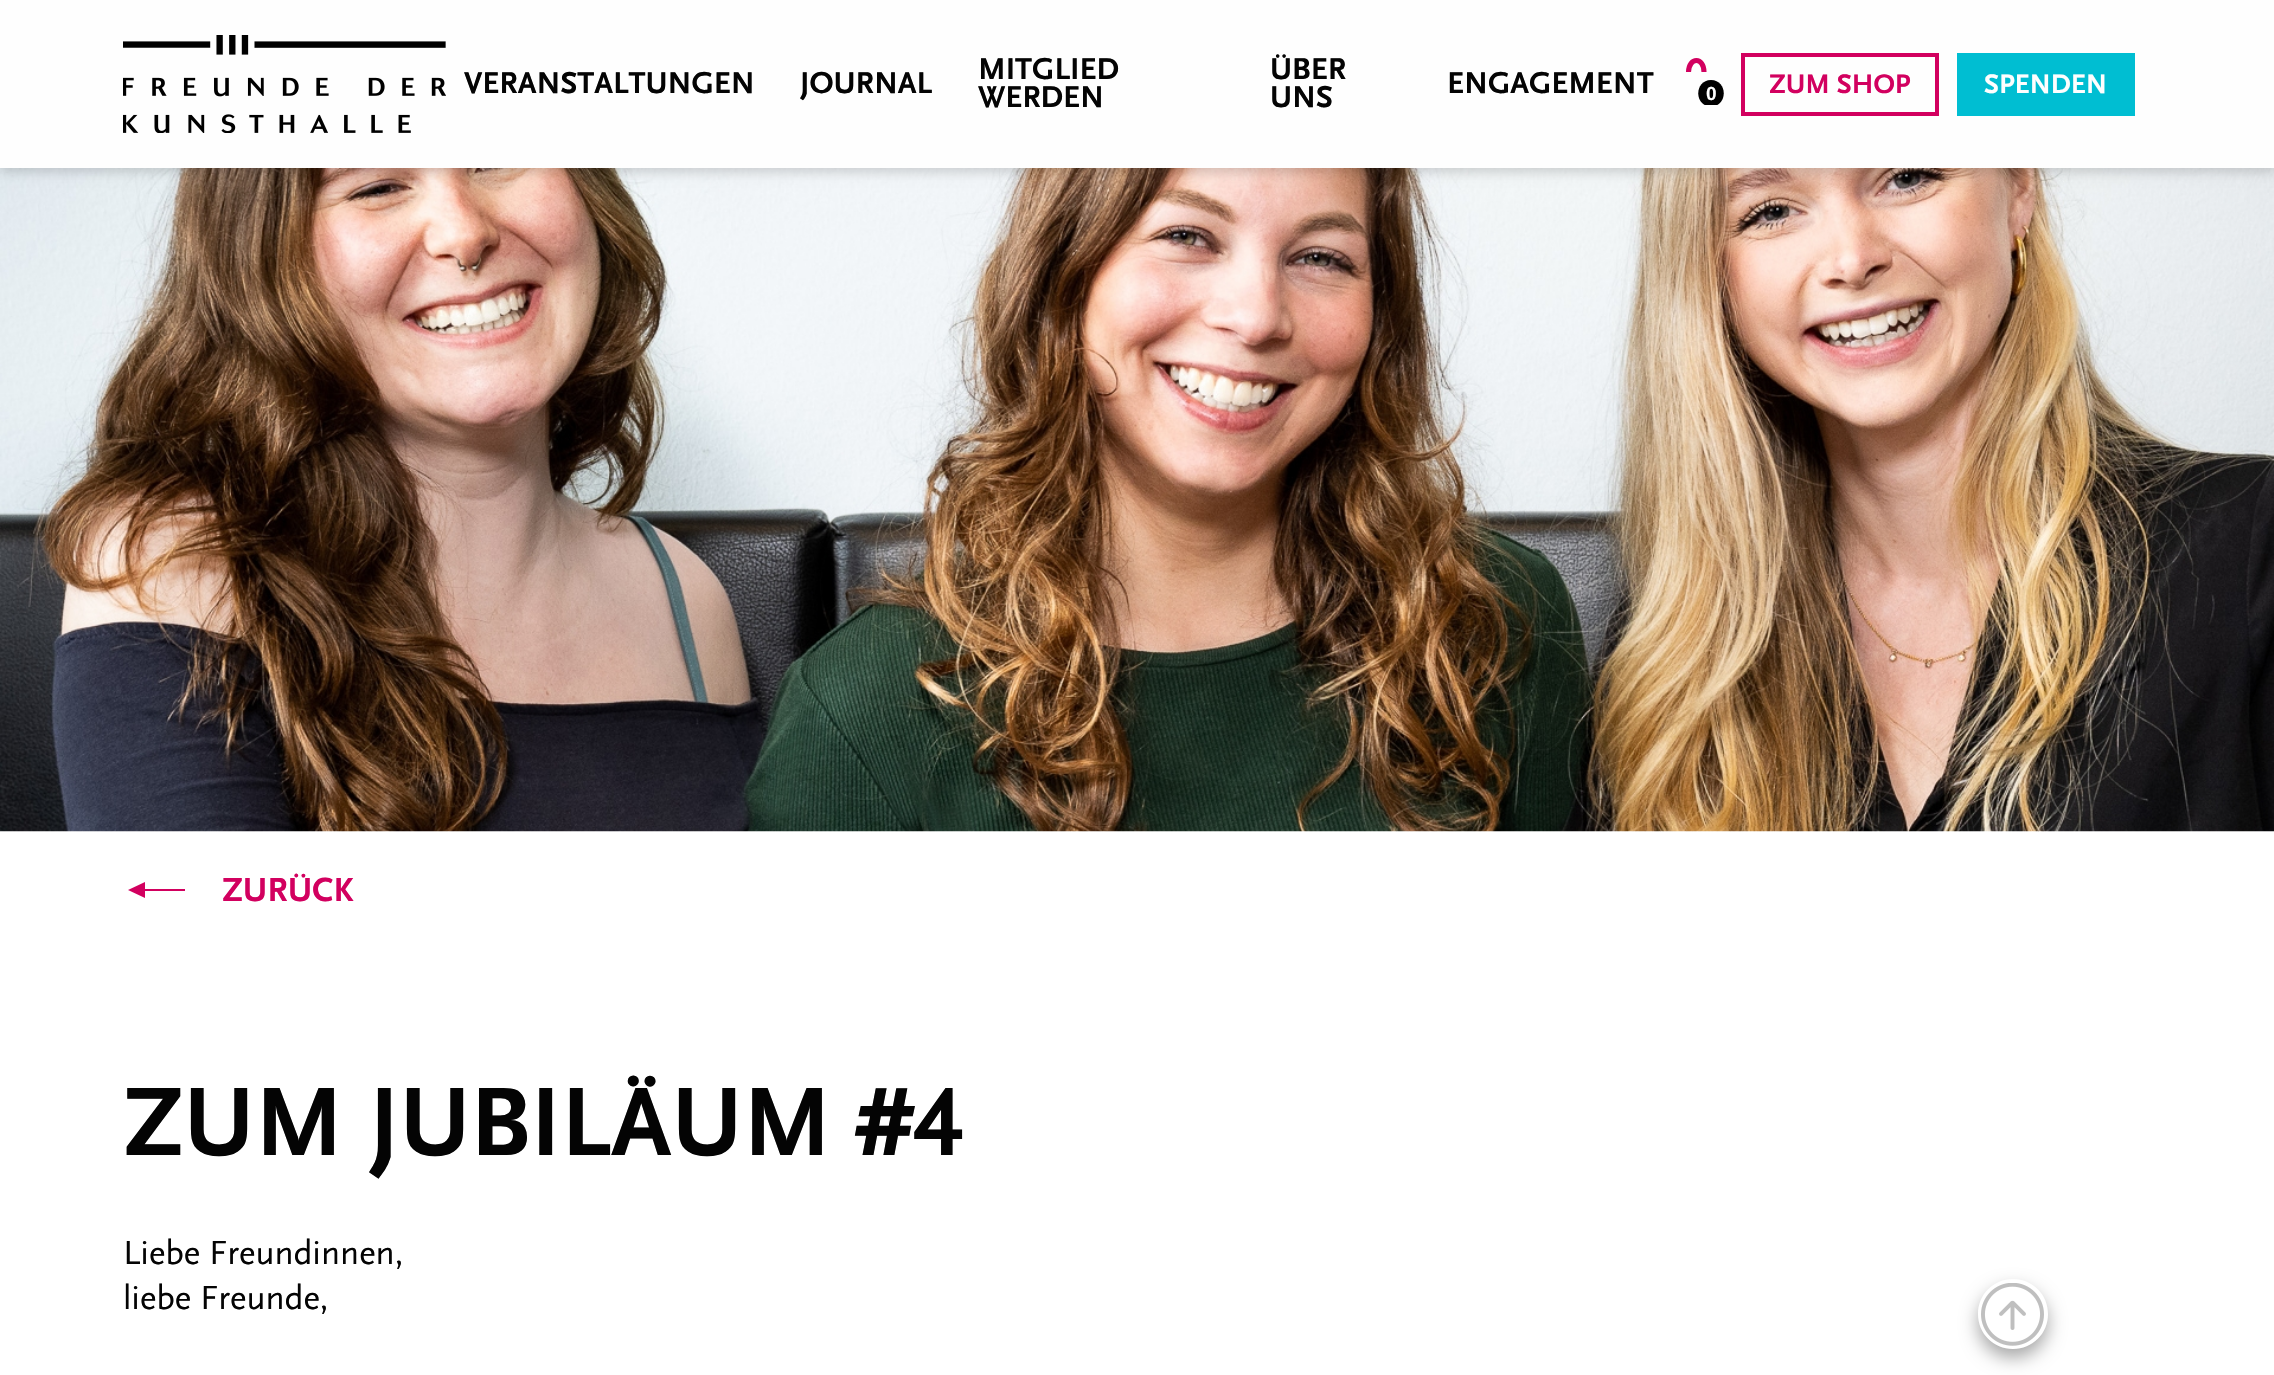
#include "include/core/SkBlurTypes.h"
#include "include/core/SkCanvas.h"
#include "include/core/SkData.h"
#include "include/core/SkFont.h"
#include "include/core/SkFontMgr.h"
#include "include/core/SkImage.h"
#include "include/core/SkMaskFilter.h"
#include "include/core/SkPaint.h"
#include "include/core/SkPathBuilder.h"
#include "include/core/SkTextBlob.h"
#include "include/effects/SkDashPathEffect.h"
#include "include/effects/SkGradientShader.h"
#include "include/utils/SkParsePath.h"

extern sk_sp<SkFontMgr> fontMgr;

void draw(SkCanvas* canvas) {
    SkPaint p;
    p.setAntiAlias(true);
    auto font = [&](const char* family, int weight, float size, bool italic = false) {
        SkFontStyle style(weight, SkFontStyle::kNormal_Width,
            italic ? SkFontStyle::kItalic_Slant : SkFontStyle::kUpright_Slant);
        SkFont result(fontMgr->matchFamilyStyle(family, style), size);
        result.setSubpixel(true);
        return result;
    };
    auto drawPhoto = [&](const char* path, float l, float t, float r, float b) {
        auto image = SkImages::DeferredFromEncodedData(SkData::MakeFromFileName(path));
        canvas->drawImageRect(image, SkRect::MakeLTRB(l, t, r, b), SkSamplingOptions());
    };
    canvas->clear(0xFFFFFFFF);
    drawPhoto("media/2.png", 0, 168, 2274, 832);
    p.setColor(0x26000000);
    p.setMaskFilter(SkMaskFilter::MakeBlur(kNormal_SkBlurStyle, 5));
    canvas->drawRect(SkRect::MakeLTRB(0, 5, 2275, 173), p);
    p.setMaskFilter(nullptr);
    p.setColor(0xFFFEFEFE);
    canvas->drawRect(SkRect::MakeLTRB(0, 0, 2274, 168), p);
    drawPhoto("media/1.png", 123, 35, 446, 133);
    auto font1 = font("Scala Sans", 700, 31.5f);
    p.setColor(0xFF040404);
    {
        const struct { const char* s; float x, y; } items[] = {
            {"VERANSTALTUNGEN", 464, 93},
            {"JOURNAL", 800, 93},
            {"MITGLIED", 978, 79},
            {"WERDEN", 978, 107},
            {"ÜBER", 1270, 79},
            {"UNS", 1270, 107},
            {"ENGAGEMENT", 1447, 93},
        };
        for (auto [s, x, y] : items) {
            canvas->drawString(s, x, y, font1, p);
        }
    }
    p.setStyle(SkPaint::kStroke_Style);
    p.setStrokeWidth(5.1f);
    p.setColor(0xFFD2005F);
    canvas->drawPath(SkPathBuilder().moveTo(1688.5f, 72).cubicTo(1689, 56.5f, 1704, 57, 1704, 72).detach(), p);
    canvas->save();
    canvas->clipRect(SkRect::MakeLTRB(1671, 58, 1724, 105));
    p.setStyle(SkPaint::kFill_Style);
    p.setColor(0xFF000000);
    canvas->drawPath(SkPathBuilder().moveTo(1711, 106.5f).cubicTo(1728, 106.5f, 1728, 80, 1711, 80).cubicTo(1694, 80, 1694, 106.5f, 1711, 106.5f).close().detach(), p);
    canvas->restore();
    auto font2 = font("Liberation Sans", 700, 19);
    p.setColor(0xFFFEFEFE);
    canvas->drawString("0", 1706, 100, font2, p);
    p.setStyle(SkPaint::kStroke_Style);
    p.setStrokeWidth(4);
    p.setColor(0xFFD2005F);
    canvas->drawRect(SkRect::MakeLTRB(1743, 55, 1937, 114), p);
    auto font3 = font("Scala Sans", 700, 28);
    p.setStyle(SkPaint::kFill_Style);
    canvas->drawString("ZUM SHOP", 1769, 93, font3, p);
    p.setColor(0xFF00BED2);
    canvas->drawRect(SkRect::MakeLTRB(1957, 53, 2135, 116), p);
    p.setColor(0xFFFEFEFE);
    canvas->drawString("SPENDEN", 1984, 93, font3, p);
    auto font4 = font("Scala Sans", 700, 35);
    p.setColor(0xFFD2005F);
    canvas->drawString("ZURÜCK", 222, 901, font4, p);
    canvas->drawPath(SkPathBuilder().moveTo(145, 898).lineTo(128, 890).lineTo(145, 882).lineTo(145, 889).lineTo(185, 889).lineTo(185, 891).lineTo(145, 891).close().detach(), p);
    auto font5 = font("Scala Sans", 700, 101.5f);
    p.setColor(0xFF040404);
    canvas->drawString("ZUM JUBILÄUM #4", 123, 1155, font5, p);
    auto font6 = font("ScalaSans", 500, 35);
    canvas->drawString("Liebe Freundinnen,", 123, 1264, font6, p);
    canvas->drawString("liebe Freunde,", 123, 1309, font6, p);
    canvas->save();
    canvas->clipPath(SkPathBuilder(SkPathFillType::kEvenOdd).moveTo(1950, 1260).lineTo(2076, 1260).lineTo(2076, 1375).lineTo(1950, 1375).close().moveTo(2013, 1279).cubicTo(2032.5f, 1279, 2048, 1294.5f, 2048, 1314).cubicTo(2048, 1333.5f, 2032.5f, 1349, 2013, 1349).cubicTo(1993.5f, 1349, 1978, 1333.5f, 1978, 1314).cubicTo(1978, 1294.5f, 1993.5f, 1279, 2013, 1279).close().detach(), true);
    p.setColor(0x59000000);
    p.setMaskFilter(SkMaskFilter::MakeBlur(kNormal_SkBlurStyle, 9));
    canvas->drawRoundRect(SkRect::MakeLTRB(1978, 1288, 2048, 1358), 35, 35, p);
    p.setMaskFilter(nullptr);
    canvas->restore();
    p.setColor(0x4DFFFFFF);
    canvas->drawCircle(2013, 1314, 35, p);
    drawPhoto("media/3.png", 1981, 1283, 2044, 1346);
}
